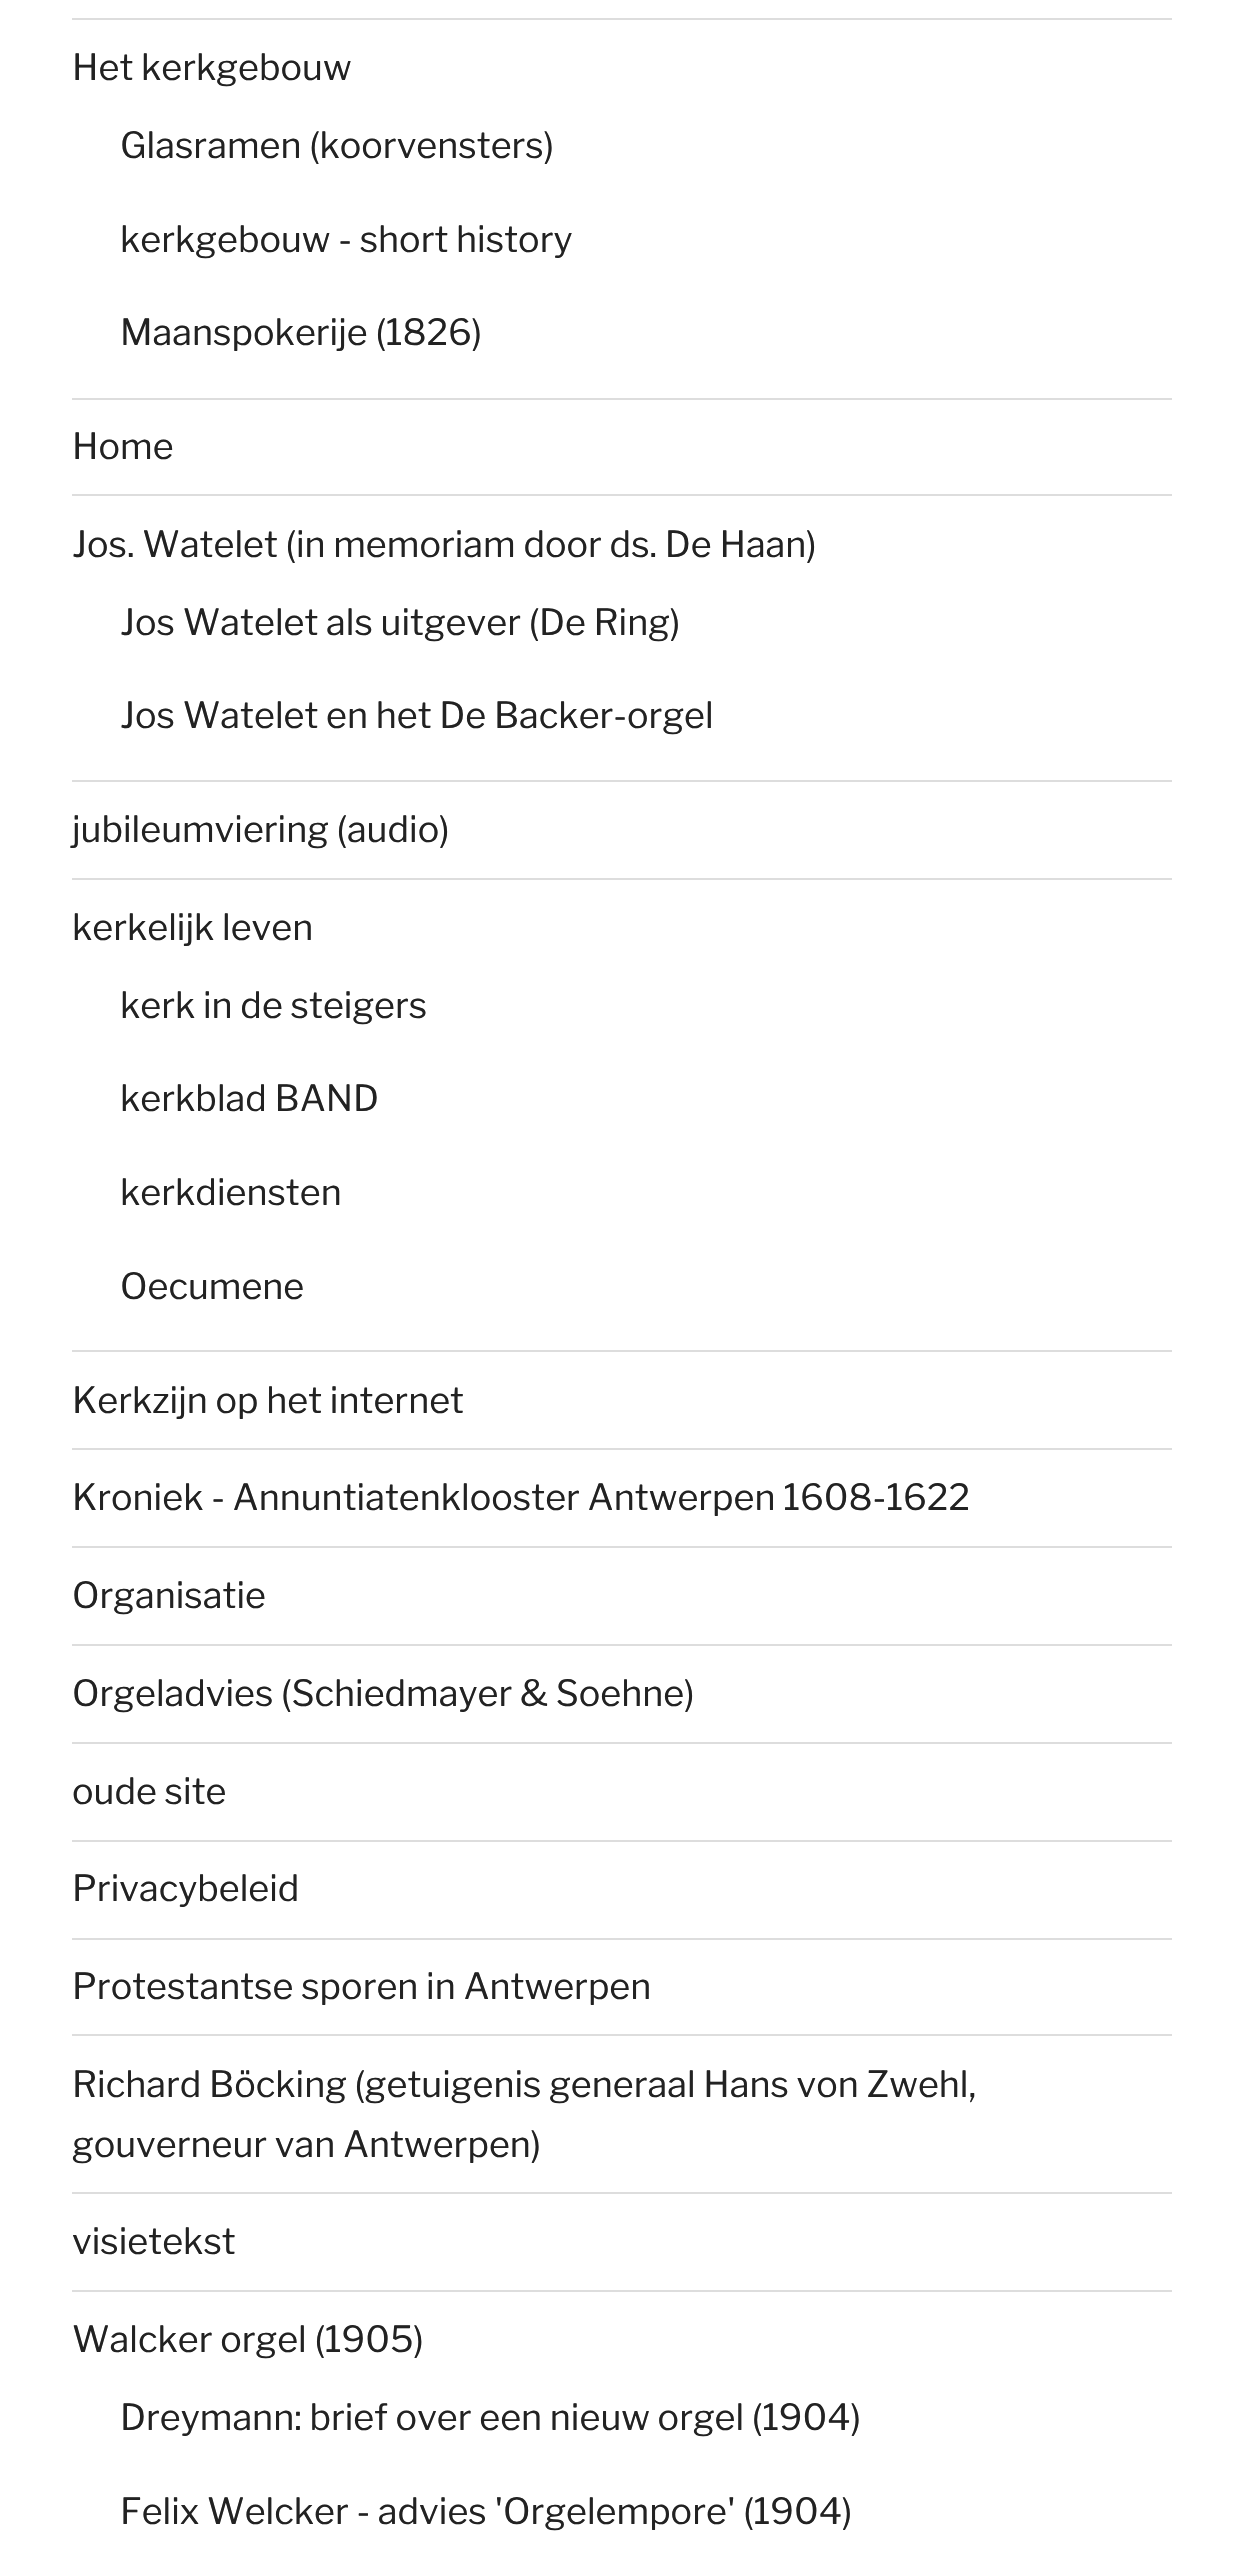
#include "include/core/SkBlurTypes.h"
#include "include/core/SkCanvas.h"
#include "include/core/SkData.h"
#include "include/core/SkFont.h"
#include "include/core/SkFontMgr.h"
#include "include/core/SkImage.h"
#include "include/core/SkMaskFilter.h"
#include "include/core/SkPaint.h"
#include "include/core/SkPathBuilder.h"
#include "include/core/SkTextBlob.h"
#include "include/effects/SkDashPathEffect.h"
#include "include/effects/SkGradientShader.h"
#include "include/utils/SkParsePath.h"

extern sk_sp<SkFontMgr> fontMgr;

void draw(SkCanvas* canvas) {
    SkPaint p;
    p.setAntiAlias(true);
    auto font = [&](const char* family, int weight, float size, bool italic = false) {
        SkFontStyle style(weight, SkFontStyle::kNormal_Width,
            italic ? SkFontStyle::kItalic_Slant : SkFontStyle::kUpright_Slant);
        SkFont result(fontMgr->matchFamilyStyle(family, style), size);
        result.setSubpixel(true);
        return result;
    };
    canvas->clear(0xFFFFFFFF);
    p.setColor(0xFFDDDDDD);
    canvas->drawRect(SkRect::MakeLTRB(72, 18, 1172, 20), p);
    canvas->drawRect(SkRect::MakeLTRB(72, 398, 1172, 400), p);
    auto font1 = font("Libre Franklin", 100, 36);
    p.setColor(0xFF222222);
    {
        const struct { const char* s; float x, y; } items[] = {
            {"Het kerkgebouw", 72, 80},
            {"Glasramen (koorvensters)", 120, 158},
            {"kerkgebouw - short history", 120, 252},
            {"Maanspokerije (1826)", 120, 345},
        };
        for (auto [s, x, y] : items) {
            canvas->drawString(s, x, y, font1, p);
        }
    }
    p.setColor(0xFFDDDDDD);
    canvas->drawRect(SkRect::MakeLTRB(72, 494, 1172, 496), p);
    p.setColor(0xFF222222);
    canvas->drawString("Home", 72, 459, font1, p);
    p.setColor(0xFFDDDDDD);
    canvas->drawRect(SkRect::MakeLTRB(72, 780, 1172, 782), p);
    p.setColor(0xFF222222);
    {
        const struct { const char* s; float x, y; } items[] = {
            {"Jos. Watelet (in memoriam door ds. De Haan)", 72, 557},
            {"Jos Watelet als uitgever (De Ring)", 120, 635},
            {"Jos Watelet en het De Backer-orgel", 120, 728},
        };
        for (auto [s, x, y] : items) {
            canvas->drawString(s, x, y, font1, p);
        }
    }
    p.setColor(0xFFDDDDDD);
    canvas->drawRect(SkRect::MakeLTRB(72, 878, 1172, 880), p);
    p.setColor(0xFF222222);
    canvas->drawString("jubileumviering (audio)", 72, 842, font1, p);
    p.setColor(0xFFDDDDDD);
    canvas->drawRect(SkRect::MakeLTRB(72, 1350, 1172, 1352), p);
    p.setColor(0xFF222222);
    {
        const struct { const char* s; float x, y; } items[] = {
            {"kerkelijk leven", 72, 940},
            {"kerk in de steigers", 120, 1018},
            {"kerkblad BAND", 120, 1111},
            {"kerkdiensten", 120, 1205},
            {"Oecumene", 120, 1299},
        };
        for (auto [s, x, y] : items) {
            canvas->drawString(s, x, y, font1, p);
        }
    }
    p.setColor(0xFFDDDDDD);
    canvas->drawRect(SkRect::MakeLTRB(72, 1448, 1172, 1450), p);
    p.setColor(0xFF222222);
    canvas->drawString("Kerkzijn op het internet", 72, 1413, font1, p);
    p.setColor(0xFFDDDDDD);
    canvas->drawRect(SkRect::MakeLTRB(72, 1546, 1172, 1548), p);
    p.setColor(0xFF222222);
    canvas->drawString("Kroniek - Annuntiatenklooster Antwerpen 1608-1622", 72, 1510, font1, p);
    p.setColor(0xFFDDDDDD);
    canvas->drawRect(SkRect::MakeLTRB(72, 1644, 1172, 1646), p);
    p.setColor(0xFF222222);
    canvas->drawString("Organisatie", 72, 1608, font1, p);
    p.setColor(0xFFDDDDDD);
    canvas->drawRect(SkRect::MakeLTRB(72, 1742, 1172, 1744), p);
    p.setColor(0xFF222222);
    canvas->drawString("Orgeladvies (Schiedmayer & Soehne)", 72, 1706, font1, p);
    p.setColor(0xFFDDDDDD);
    canvas->drawRect(SkRect::MakeLTRB(72, 1840, 1172, 1842), p);
    p.setColor(0xFF222222);
    canvas->drawString("oude site", 72, 1804, font1, p);
    p.setColor(0xFFDDDDDD);
    canvas->drawRect(SkRect::MakeLTRB(72, 1938, 1172, 1940), p);
    p.setColor(0xFF222222);
    canvas->drawString("Privacybeleid", 72, 1901, font1, p);
    p.setColor(0xFFDDDDDD);
    canvas->drawRect(SkRect::MakeLTRB(72, 2034, 1172, 2036), p);
    p.setColor(0xFF222222);
    canvas->drawString("Protestantse sporen in Antwerpen", 72, 1999, font1, p);
    p.setColor(0xFFDDDDDD);
    canvas->drawRect(SkRect::MakeLTRB(72, 2192, 1172, 2194), p);
    p.setColor(0xFF222222);
    canvas->drawString("Richard Böcking (getuigenis generaal Hans von Zwehl,", 72, 2097, font1, p);
    canvas->drawString("gouverneur van Antwerpen)", 72, 2157, font1, p);
    p.setColor(0xFFDDDDDD);
    canvas->drawRect(SkRect::MakeLTRB(72, 2290, 1172, 2292), p);
    p.setColor(0xFF222222);
    {
        const struct { const char* s; float x, y; } items[] = {
            {"visietekst", 72, 2254},
            {"Walcker orgel (1905)", 72, 2352},
            {"Dreymann: brief over een nieuw orgel (1904)", 120, 2430},
            {"Felix Welcker - advies 'Orgelempore' (1904)", 120, 2524},
        };
        for (auto [s, x, y] : items) {
            canvas->drawString(s, x, y, font1, p);
        }
    }
}
